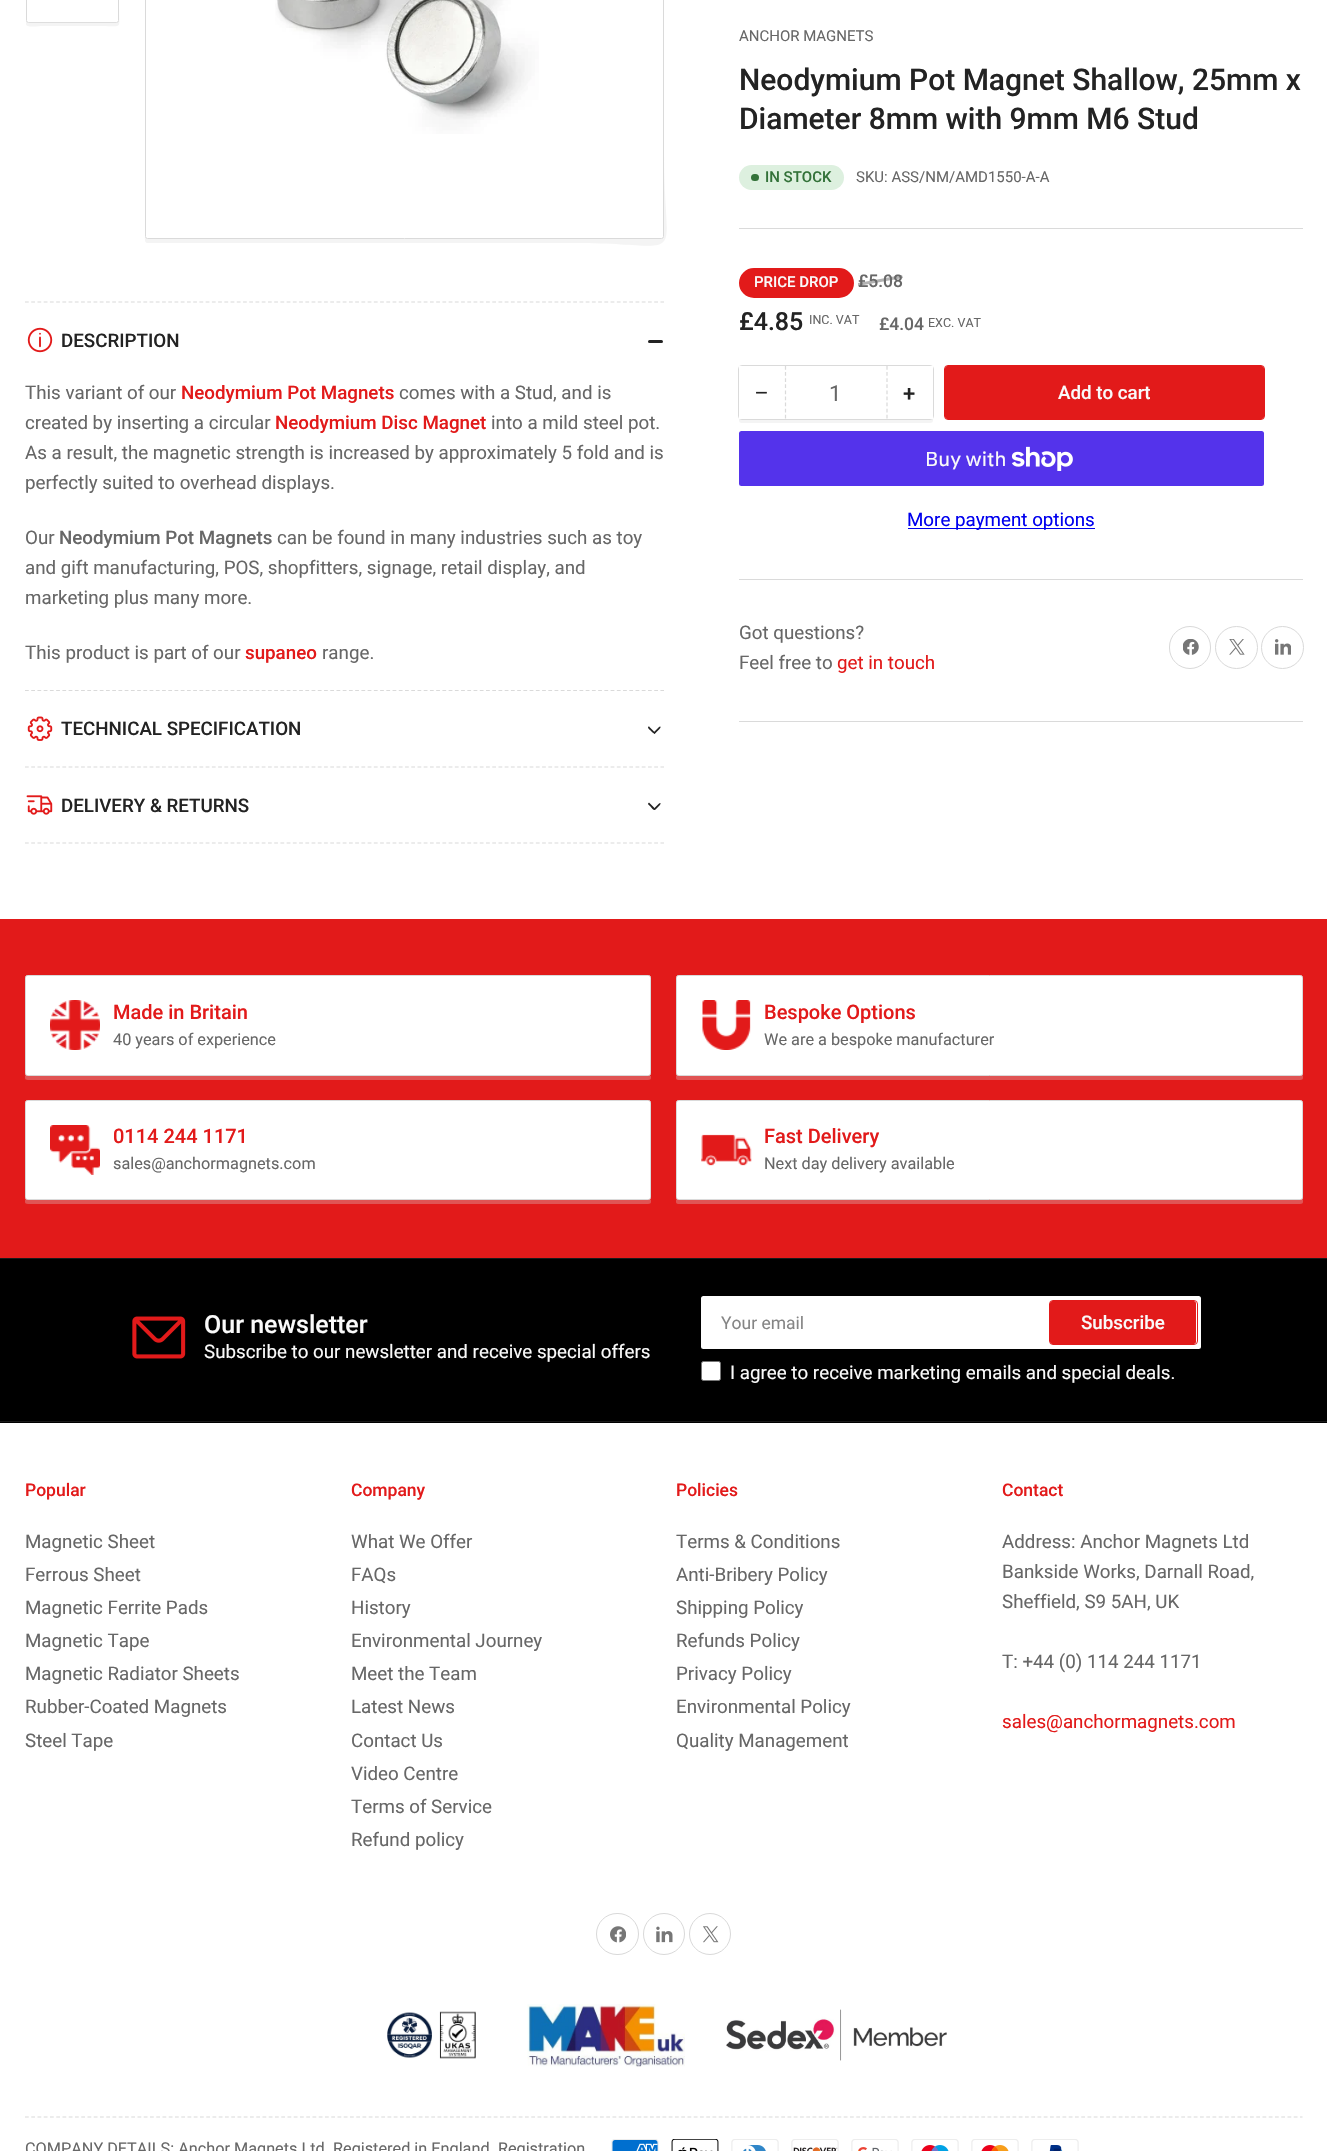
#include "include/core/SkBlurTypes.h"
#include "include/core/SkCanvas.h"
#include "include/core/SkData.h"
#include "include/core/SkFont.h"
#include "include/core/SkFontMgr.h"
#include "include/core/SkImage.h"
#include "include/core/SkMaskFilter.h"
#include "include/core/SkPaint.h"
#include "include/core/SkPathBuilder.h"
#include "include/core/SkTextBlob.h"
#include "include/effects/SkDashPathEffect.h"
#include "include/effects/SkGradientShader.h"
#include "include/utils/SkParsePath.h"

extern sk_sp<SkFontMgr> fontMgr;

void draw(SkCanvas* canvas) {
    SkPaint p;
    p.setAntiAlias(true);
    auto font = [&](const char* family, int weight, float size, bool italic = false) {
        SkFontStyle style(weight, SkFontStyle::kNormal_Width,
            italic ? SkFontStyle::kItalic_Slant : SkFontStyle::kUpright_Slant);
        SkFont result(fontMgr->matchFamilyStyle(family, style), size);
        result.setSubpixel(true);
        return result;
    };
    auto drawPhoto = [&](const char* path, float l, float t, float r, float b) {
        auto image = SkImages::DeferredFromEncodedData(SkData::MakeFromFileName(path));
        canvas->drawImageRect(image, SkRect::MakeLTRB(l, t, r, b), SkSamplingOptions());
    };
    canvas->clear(0xFFFFFFFF);
    p.setColor(0xFFF4F4F4);
    canvas->drawPath(SkPathBuilder().moveTo(26, -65).lineTo(26, 24).cubicTo(26, 28, 38, 26, 43, 26).lineTo(102, 26).cubicTo(123, 26, 119, 30, 119, 9).lineTo(119, -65).lineTo(119, 20).cubicTo(119, 21, 118, 22, 116, 22).lineTo(29, 22).cubicTo(27, 22, 26, 21, 26, 20).close().detach(), p);
    p.setColor(0xFFFFFFFF);
    canvas->drawRoundRect(SkRect::MakeLTRB(26.5f, -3.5f, 118.5f, 22.5f), 2, 2, p);
    p.setStyle(SkPaint::kStroke_Style);
    p.setStrokeWidth(1);
    p.setColor(0xFFDADADA);
    canvas->drawRoundRect(SkRect::MakeLTRB(26.5f, -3.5f, 118.5f, 22.5f), 2, 2, p);
    p.setStyle(SkPaint::kFill_Style);
    {
        const SkColor colors[] = {0xFFFFFFFF, 0x00FFFFFF};
        const float stops[] = {0, 1};
        const SkPoint ends[] = {{73, 61}, {73, 18}};
        p.setShader(SkGradientShader::MakeLinear(ends, colors, stops, 2, SkTileMode::kClamp));
        p.setAlpha(255);
    }
    canvas->drawRect(SkRect::MakeLTRB(27, 22, 118, 23), p);
    p.setShader(nullptr);
    p.setColor(0xFFF4F4F4);
    canvas->drawPath(SkPathBuilder().moveTo(145, 236).cubicTo(145, 238, 144, 243, 148, 243).lineTo(576, 243).cubicTo(691, 243, 664, 270, 664, 155).lineTo(664, -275).lineTo(664, 236).cubicTo(664, 238, 663, 239, 661, 239).lineTo(148, 239).cubicTo(146, 239, 145, 238, 145, 236).close().detach(), p);
    p.setStyle(SkPaint::kStroke_Style);
    p.setColor(0xFFDADADA);
    canvas->drawRoundRect(SkRect::MakeLTRB(145.5f, -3.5f, 663.5f, 238.5f), 2, 2, p);
    drawPhoto("media/1.png", 275, 0, 539, 134);
    p.setStyle(SkPaint::kFill_Style);
    canvas->drawRect(SkRect::MakeLTRB(739, 228, 1303, 229), p);
    auto font1 = font("Roboto", 400, 15);
    p.setColor(0xFF676767);
    canvas->drawString("ANCHOR MAGNETS", 739, 41, font1, p);
    auto font2 = font("Roboto", 500, 30);
    p.setColor(0xFF232323);
    canvas->drawString("Neodymium Pot Magnet Shallow, 25mm x", 739, 90, font2, p);
    canvas->drawString("Diameter 8mm with 9mm M6 Stud", 739, 129, font2, p);
    p.setColor(0xFFDDF0DF);
    canvas->drawRoundRect(SkRect::MakeLTRB(739, 165, 844, 190), 12.5f, 12.5f, p);
    p.setColor(0xFF337239);
    canvas->drawRoundRect(SkRect::MakeLTRB(751, 174, 759, 181), 3.5f, 3.5f, p);
    auto font3 = font("Roboto", 500, 15);
    canvas->drawString("IN STOCK", 765, 182, font3, p);
    p.setColor(0xFF676767);
    canvas->drawString("SKU: ASS/NM/AMD1550-A-A", 856, 182, font1, p);
    p.setColor(0xFFE21A1A);
    canvas->drawRoundRect(SkRect::MakeLTRB(740.5f, 269.5f, 852.5f, 296.5f), 13.5f, 13.5f, p);
    p.setStyle(SkPaint::kStroke_Style);
    p.setStrokeWidth(3);
    canvas->drawRoundRect(SkRect::MakeLTRB(740.5f, 269.5f, 852.5f, 296.5f), 13.5f, 13.5f, p);
    p.setStyle(SkPaint::kFill_Style);
    p.setColor(0xFFFAFAFA);
    canvas->drawString("PRICE DROP", 754, 287, font3, p);
    auto font4 = font("Roboto", 500, 17.5f);
    p.setColor(0xFF676767);
    canvas->drawString("£5.08", 858, 287, font4, p);
    p.setColor(0x80676767);
    canvas->drawPath(SkPathBuilder().moveTo(858, 283).lineTo(902, 275).lineTo(903, 278).lineTo(858, 286).close().detach(), p);
    auto font5 = font("Roboto", 500, 25);
    p.setColor(0xFF232323);
    canvas->drawString("£4.85", 739, 330, font5, p);
    auto font6 = font("Roboto", 400, 12.5f);
    p.setColor(0xFF676767);
    canvas->drawString("INC. VAT", 809, 324, font6, p);
    canvas->drawString("£4.04", 879, 330, font4, p);
    canvas->drawString("EXC. VAT", 928, 327, font6, p);
    p.setColor(0xFFF4F4F4);
    canvas->drawPath(SkPathBuilder().moveTo(739, 417).lineTo(739, 420).cubicTo(739, 422, 740, 423, 742, 423).lineTo(930, 423).cubicTo(932, 423, 933, 422, 933, 420).lineTo(933, 372).lineTo(932, 371).lineTo(932, 416).cubicTo(932, 418, 931, 419, 930, 419).lineTo(741, 419).cubicTo(740, 419, 739, 418, 739, 417).close().detach(), p);
    p.setStyle(SkPaint::kStroke_Style);
    p.setStrokeWidth(1);
    p.setColor(0xFFDADADA);
    canvas->drawRoundRect(SkRect::MakeLTRB(738.5f, 365.5f, 933.5f, 419.5f), 3.5f, 3.5f, p);
    p.setStyle(SkPaint::kFill_Style);
    p.setColor(0xFFFFFFFF);
    canvas->drawRect(SkRect::MakeLTRB(739, 366, 742, 419), p);
    auto font7 = font("Liberation Sans", 400, 22);
    p.setColor(0xFF232323);
    canvas->drawString("−", 755, 400, font7, p);
    p.setStyle(SkPaint::kStroke_Style);
    p.setStrokeWidth(1.2f);
    p.setColor(0xFFDADADA);
    p.setPathEffect(SkDashPathEffect::Make({{3.75f, 2.35f}}, 0));
    canvas->drawPath(SkPathBuilder().moveTo(887, 366).lineTo(887, 419).detach(), p);
    p.setPathEffect(nullptr);
    p.setPathEffect(SkDashPathEffect::Make({{3.75f, 2.35f}}, 0));
    canvas->drawPath(SkPathBuilder().moveTo(785.5f, 366).lineTo(785.5f, 419).detach(), p);
    p.setPathEffect(nullptr);
    auto font8 = font("Roboto", 400, 22);
    p.setStyle(SkPaint::kFill_Style);
    p.setColor(0xFF676767);
    canvas->drawString("1", 829, 401, font8, p);
    p.setColor(0xFFFFFFFF);
    canvas->drawRect(SkRect::MakeLTRB(930, 366, 933, 419), p);
    auto font9 = font("Roboto", 500, 22);
    p.setColor(0xFF232323);
    canvas->drawString("+", 903, 401, font9, p);
    p.setStyle(SkPaint::kStroke_Style);
    p.setStrokeWidth(1);
    p.setColor(0xFFE21A1A);
    canvas->drawRoundRect(SkRect::MakeLTRB(944.5f, 365.5f, 1264.5f, 419.5f), 3.5f, 3.5f, p);
    p.setStyle(SkPaint::kFill_Style);
    canvas->drawRoundRect(SkRect::MakeLTRB(945, 366, 1264, 419), 2.5f, 2.5f, p);
    auto font10 = font("Roboto", 500, 18.75f);
    p.setColor(0xFFFAFAFA);
    canvas->drawString("Add to cart", 1058, 399, font10, p);
    p.setColor(0xFF5433EB);
    canvas->drawRoundRect(SkRect::MakeLTRB(739, 431, 1264, 486), 2.5f, 2.5f, p);
    auto font11 = font("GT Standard", 400, 20);
    p.setColor(0xFFFAFAFA);
    canvas->drawString("Buy with", 925, 466, font11, p);
    drawPhoto("media/2.png", 1011, 446, 1073, 471);
    p.setColor(0xFF0000EE);
    canvas->drawRect(SkRect::MakeLTRB(908, 528, 1095, 529), p);
    auto font12 = font("Roboto", 400, 18.75f);
    canvas->drawString("More payment options", 907, 526, font12, p);
    p.setColor(0xFFDADADA);
    canvas->drawRect(SkRect::MakeLTRB(739, 579, 1303, 580), p);
    p.setColor(0xFF676767);
    canvas->drawString("Got questions?", 739, 639, font12, p);
    canvas->drawString("Feel free to", 739, 669, font12, p);
    p.setColor(0xFFE21A1A);
    canvas->drawString("get in touch", 837, 669, font12, p);
    p.setStyle(SkPaint::kStroke_Style);
    p.setColor(0xFFD9D9D9);
    canvas->drawRoundRect(SkRect::MakeLTRB(1169.5f, 626.5f, 1210.5f, 668.5f), 20.5f, 20.5f, p);
    drawPhoto("media/3.png", 1183, 639, 1199, 655);
    canvas->drawCircle(1236.5f, 647.5f, 21, p);
    drawPhoto("media/4.png", 1229, 639, 1245, 655);
    canvas->drawCircle(1282.5f, 647.5f, 21, p);
    drawPhoto("media/5.png", 1275, 639, 1291, 655);
    p.setStyle(SkPaint::kFill_Style);
    p.setColor(0xFFDADADA);
    canvas->drawRect(SkRect::MakeLTRB(739, 721, 1303, 722), p);
    p.setStyle(SkPaint::kStroke_Style);
    p.setStrokeWidth(1.2f);
    p.setPathEffect(SkDashPathEffect::Make({{3.75f, 2.48f}}, 0));
    canvas->drawPath(SkPathBuilder().moveTo(25, 302).lineTo(664, 302).detach(), p);
    p.setPathEffect(nullptr);
    p.setPathEffect(SkDashPathEffect::Make({{3.75f, 2.48f}}, 0));
    canvas->drawPath(SkPathBuilder().moveTo(25, 690.5f).lineTo(664, 690.5f).detach(), p);
    p.setPathEffect(nullptr);
    drawPhoto("media/6.png", 27, 327, 53, 353);
    p.setStyle(SkPaint::kFill_Style);
    p.setColor(0xFF232323);
    canvas->drawString("DESCRIPTION", 61, 347, font10, p);
    canvas->drawRoundRect(SkRect::MakeLTRB(648, 340, 656, 343), 1.5f, 1.5f, p);
    canvas->drawRoundRect(SkRect::MakeLTRB(653, 340, 663, 343), 1.5f, 1.5f, p);
    p.setColor(0xFF676767);
    canvas->drawString("This variant of our", 25, 399, font12, p);
    p.setColor(0xFFE21A1A);
    canvas->drawString("Neodymium Pot Magnets", 181, 399, font10, p);
    p.setColor(0xFF676767);
    canvas->drawString("comes with a Stud, and is", 399, 399, font12, p);
    canvas->drawString("created by inserting a circular", 25, 429, font12, p);
    p.setColor(0xFFE21A1A);
    canvas->drawString("Neodymium Disc Magnet", 275, 429, font10, p);
    p.setColor(0xFF676767);
    {
        const struct { const char* s; float x, y; } items[] = {
            {"into a mild steel pot.", 491, 429},
            {"As a result, the magnetic strength is increased by approximately 5 fold and is", 25, 459},
            {"perfectly suited to overhead displays.", 25, 489},
            {"Our", 25, 544},
        };
        for (auto [s, x, y] : items) {
            canvas->drawString(s, x, y, font12, p);
        }
    }
    canvas->drawString("Neodymium Pot Magnets", 59, 544, font10, p);
    {
        const struct { const char* s; float x, y; } items[] = {
            {"can be found in many industries such as toy", 277, 544},
            {"and gift manufacturing, POS, shopfitters, signage, retail display, and", 25, 574},
            {"marketing plus many more.", 25, 604},
            {"This product is part of our", 25, 659},
        };
        for (auto [s, x, y] : items) {
            canvas->drawString(s, x, y, font12, p);
        }
    }
    p.setColor(0xFFE21A1A);
    canvas->drawString("supaneo", 245, 659, font10, p);
    p.setColor(0xFF676767);
    canvas->drawString("range.", 322, 659, font12, p);
    p.setStyle(SkPaint::kStroke_Style);
    p.setColor(0xFFDADADA);
    p.setPathEffect(SkDashPathEffect::Make({{3.75f, 2.48f}}, 0));
    canvas->drawPath(SkPathBuilder().moveTo(25, 767).lineTo(664, 767).detach(), p);
    p.setPathEffect(nullptr);
    drawPhoto("media/7.png", 27, 716, 53, 741);
    p.setStyle(SkPaint::kFill_Style);
    p.setColor(0xFF232323);
    canvas->drawString("TECHNICAL SPECIFICATION", 61, 735, font10, p);
    canvas->drawPath(SkPathBuilder().moveTo(649.5f, 727).lineTo(654, 731.5f).cubicTo(656, 733.5f, 655, 734.5f, 652.5f, 732.5f).lineTo(650, 730).cubicTo(649.5f, 729.5f, 647, 727.5f, 648.5f, 726.5f).cubicTo(649, 726.5f, 649.5f, 726.5f, 649.5f, 727).close().detach(), p);
    canvas->drawPath(SkPathBuilder().moveTo(654, 732).lineTo(658.5f, 727.5f).cubicTo(660.5f, 725.5f, 661.5f, 727, 659.5f, 729).lineTo(657, 731.5f).cubicTo(656.5f, 732, 654.5f, 735, 654, 733.5f).cubicTo(653.5f, 733, 653.5f, 732.5f, 654, 732).close().detach(), p);
    p.setStyle(SkPaint::kStroke_Style);
    p.setColor(0xFFDADADA);
    p.setPathEffect(SkDashPathEffect::Make({{3.75f, 2.48f}}, 0));
    canvas->drawPath(SkPathBuilder().moveTo(25, 843).lineTo(664, 843).detach(), p);
    p.setPathEffect(nullptr);
    drawPhoto("media/8.png", 26, 795, 53, 815);
    p.setStyle(SkPaint::kFill_Style);
    p.setColor(0xFF232323);
    canvas->drawString("DELIVERY & RETURNS", 61, 812, font10, p);
    canvas->drawPath(SkPathBuilder().moveTo(649.5f, 803).lineTo(654, 807.5f).cubicTo(656, 809.5f, 655, 811, 652.5f, 809).lineTo(650, 806).cubicTo(649.5f, 805.5f, 647, 804, 648.5f, 803).cubicTo(649, 802.5f, 649.5f, 803, 649.5f, 803).close().detach(), p);
    canvas->drawPath(SkPathBuilder().moveTo(654, 808.5f).lineTo(658.5f, 804).cubicTo(660.5f, 802, 661.5f, 803, 659.5f, 805.5f).lineTo(657, 808).cubicTo(656.5f, 808.5f, 654.5f, 811, 654, 809.5f).cubicTo(653.5f, 809, 653.5f, 808.5f, 654, 808.5f).close().detach(), p);
    p.setColor(0xFFE21A1A);
    canvas->drawRect(SkRect::MakeLTRB(0, 919, 1327, 1258), p);
    p.setColor(0xFFE05454);
    canvas->drawPath(SkPathBuilder().moveTo(25, 1074).lineTo(25, 1078).cubicTo(25, 1079, 26, 1080, 28, 1080).lineTo(648, 1080).cubicTo(650, 1080, 651, 1079, 651, 1078).lineTo(651, 1075).cubicTo(651, 1076, 650, 1076, 649, 1076).lineTo(28, 1076).cubicTo(26, 1076, 25, 1075, 25, 1074).close().detach(), p);
    p.setColor(0xFFFFFFFF);
    canvas->drawRoundRect(SkRect::MakeLTRB(25.5f, 975.5f, 650.5f, 1075.5f), 2, 2, p);
    p.setStyle(SkPaint::kStroke_Style);
    p.setStrokeWidth(1);
    p.setColor(0xFFDADADA);
    canvas->drawRoundRect(SkRect::MakeLTRB(25.5f, 975.5f, 650.5f, 1075.5f), 2, 2, p);
    drawPhoto("media/9.png", 50, 1000, 100, 1050);
    auto font13 = font("Roboto", 500, 20);
    p.setStyle(SkPaint::kFill_Style);
    p.setColor(0xFFE21A1A);
    canvas->drawString("Made in Britain", 113, 1019, font13, p);
    auto font14 = font("Roboto", 400, 16.25f);
    p.setColor(0xFF676767);
    canvas->drawString("40 years of experience", 113, 1045, font14, p);
    p.setColor(0xFFE05454);
    canvas->drawPath(SkPathBuilder().moveTo(676, 980).lineTo(676, 1078).cubicTo(676, 1079, 677, 1080, 678, 1080).lineTo(1300, 1080).cubicTo(1302, 1080, 1303, 1079, 1303, 1078).lineTo(1303, 982).lineTo(1302, 980).lineTo(1302, 1074).cubicTo(1302, 1075, 1301, 1076, 1300, 1076).lineTo(679, 1076).cubicTo(677, 1076, 676, 1075, 676, 1074).close().detach(), p);
    p.setColor(0xFFFFFFFF);
    canvas->drawRoundRect(SkRect::MakeLTRB(676.5f, 975.5f, 1302.5f, 1075.5f), 2, 2, p);
    p.setStyle(SkPaint::kStroke_Style);
    p.setColor(0xFFDADADA);
    canvas->drawRoundRect(SkRect::MakeLTRB(676.5f, 975.5f, 1302.5f, 1075.5f), 2, 2, p);
    drawPhoto("media/10.png", 702, 1000, 751, 1050);
    p.setStyle(SkPaint::kFill_Style);
    p.setColor(0xFFE21A1A);
    canvas->drawString("Bespoke Options", 764, 1019, font13, p);
    p.setColor(0xFF676767);
    canvas->drawString("We are a bespoke manufacturer", 764, 1045, font14, p);
    p.setColor(0xFFE05454);
    canvas->drawPath(SkPathBuilder().moveTo(25, 1198).lineTo(25, 1202).cubicTo(25, 1203, 26, 1204, 28, 1204).lineTo(648, 1204).cubicTo(650, 1204, 651, 1203, 651, 1202).lineTo(651, 1199).cubicTo(651, 1199, 650, 1200, 649, 1200).lineTo(28, 1200).cubicTo(26, 1200, 25, 1199, 25, 1198).close().detach(), p);
    p.setColor(0xFFFFFFFF);
    canvas->drawRoundRect(SkRect::MakeLTRB(25.5f, 1100.5f, 650.5f, 1199.5f), 2, 2, p);
    p.setStyle(SkPaint::kStroke_Style);
    p.setColor(0xFFDADADA);
    canvas->drawRoundRect(SkRect::MakeLTRB(25.5f, 1100.5f, 650.5f, 1199.5f), 2, 2, p);
    drawPhoto("media/11.png", 50, 1125, 100, 1175);
    p.setStyle(SkPaint::kFill_Style);
    p.setColor(0xFFE21A1A);
    canvas->drawString("0114 244 1171", 113, 1143, font13, p);
    p.setColor(0xFF676767);
    canvas->drawString("sales@anchormagnets.com", 113, 1169, font14, p);
    p.setColor(0xFFE05454);
    canvas->drawPath(SkPathBuilder().moveTo(676, 1105).lineTo(676, 1202).cubicTo(676, 1203, 677, 1204, 678, 1204).lineTo(1300, 1204).cubicTo(1302, 1204, 1303, 1203, 1303, 1202).lineTo(1303, 1106).lineTo(1302, 1105).lineTo(1302, 1198).cubicTo(1302, 1199, 1301, 1200, 1300, 1200).lineTo(679, 1200).cubicTo(677, 1200, 676, 1199, 676, 1198).close().detach(), p);
    p.setColor(0xFFFFFFFF);
    canvas->drawRoundRect(SkRect::MakeLTRB(676.5f, 1100.5f, 1302.5f, 1199.5f), 2, 2, p);
    p.setStyle(SkPaint::kStroke_Style);
    p.setColor(0xFFDADADA);
    canvas->drawRoundRect(SkRect::MakeLTRB(676.5f, 1100.5f, 1302.5f, 1199.5f), 2, 2, p);
    drawPhoto("media/12.png", 701, 1134, 752, 1166);
    p.setStyle(SkPaint::kFill_Style);
    p.setColor(0xFFE21A1A);
    canvas->drawString("Fast Delivery", 764, 1143, font13, p);
    p.setColor(0xFF676767);
    canvas->drawString("Next day delivery available", 764, 1169, font14, p);
    {
        const struct { float l, t, r, b; SkColor color; } items[] = {
            {0, 1259, 1327, 1423, 0xFF000000},
            {0, 1258, 1327, 1259, 0xFF191919},
            {0, 1421, 1327, 1422, 0xFF191919},
        };
        for (auto [l, t, r, b, color] : items) {
            p.setColor(color);
            canvas->drawRect(SkRect::MakeLTRB(l, t, r, b), p);
        }
    }
    drawPhoto("media/13.png", 132, 1316, 186, 1359);
    p.setColor(0xFFFAFAFA);
    canvas->drawString("Our newsletter", 204, 1333, font5, p);
    canvas->drawString("Subscribe to our newsletter and receive special offers", 204, 1358, font12, p);
    p.setColor(0xFFFFFFFF);
    canvas->drawRoundRect(SkRect::MakeLTRB(701, 1296, 1201, 1349), 2.5f, 2.5f, p);
    p.setStyle(SkPaint::kStroke_Style);
    p.setColor(0x1AFAFAFA);
    canvas->drawRoundRect(SkRect::MakeLTRB(701.5f, 1296.5f, 1200.5f, 1348.5f), 2, 2, p);
    auto font15 = font("Roboto", 400, 17.5f);
    p.setStyle(SkPaint::kFill_Style);
    p.setColor(0xFF858585);
    canvas->drawString("Your email", 721, 1329, font15, p);
    p.setStyle(SkPaint::kStroke_Style);
    p.setColor(0xFFE21A1A);
    canvas->drawRoundRect(SkRect::MakeLTRB(1049.5f, 1300.5f, 1197.5f, 1344.5f), 3.5f, 3.5f, p);
    p.setStyle(SkPaint::kFill_Style);
    canvas->drawRoundRect(SkRect::MakeLTRB(1050, 1301, 1196, 1344), 2.5f, 2.5f, p);
    p.setColor(0xFFFAFAFA);
    canvas->drawString("Subscribe", 1081, 1329, font10, p);
    p.setColor(0xFFFFFFFF);
    canvas->drawRoundRect(SkRect::MakeLTRB(701.5f, 1361.5f, 720.5f, 1380.5f), 2, 2, p);
    p.setStyle(SkPaint::kStroke_Style);
    p.setColor(0xFF767676);
    canvas->drawRoundRect(SkRect::MakeLTRB(701.5f, 1361.5f, 720.5f, 1380.5f), 2, 2, p);
    p.setStyle(SkPaint::kFill_Style);
    p.setColor(0xFFFAFAFA);
    canvas->drawString("I agree to receive marketing emails and special deals.", 730, 1379, font12, p);
    p.setColor(0xFFE21A1A);
    canvas->drawString("Popular", 25, 1496, font4, p);
    p.setColor(0xFF676767);
    {
        const struct { const char* s; float x, y; } items[] = {
            {"Magnetic Sheet", 25, 1548},
            {"Ferrous Sheet", 25, 1581},
            {"Magnetic Ferrite Pads", 25, 1614},
            {"Magnetic Tape", 25, 1647},
            {"Magnetic Radiator Sheets", 25, 1680},
            {"Rubber-Coated Magnets", 25, 1713},
            {"Steel Tape", 25, 1747},
        };
        for (auto [s, x, y] : items) {
            canvas->drawString(s, x, y, font12, p);
        }
    }
    p.setColor(0xFFE21A1A);
    canvas->drawString("Company", 351, 1496, font4, p);
    p.setColor(0xFF676767);
    {
        const struct { const char* s; float x, y; } items[] = {
            {"What We Offer", 351, 1548},
            {"FAQs", 351, 1581},
            {"History", 351, 1614},
            {"Environmental Journey", 351, 1647},
            {"Meet the Team", 351, 1680},
            {"Latest News", 351, 1713},
            {"Contact Us", 351, 1747},
            {"Video Centre", 351, 1780},
            {"Terms of Service", 351, 1813},
            {"Refund policy", 351, 1846},
        };
        for (auto [s, x, y] : items) {
            canvas->drawString(s, x, y, font12, p);
        }
    }
    p.setColor(0xFFE21A1A);
    canvas->drawString("Policies", 676, 1496, font4, p);
    p.setColor(0xFF676767);
    {
        const struct { const char* s; float x, y; } items[] = {
            {"Terms & Conditions", 676, 1548},
            {"Anti-Bribery Policy", 676, 1581},
            {"Shipping Policy", 676, 1614},
            {"Refunds Policy", 676, 1647},
            {"Privacy Policy", 676, 1680},
            {"Environmental Policy", 676, 1713},
            {"Quality Management", 676, 1747},
        };
        for (auto [s, x, y] : items) {
            canvas->drawString(s, x, y, font12, p);
        }
    }
    p.setColor(0xFFE21A1A);
    canvas->drawString("Contact", 1002, 1496, font4, p);
    p.setColor(0xFF676767);
    {
        const struct { const char* s; float x, y; } items[] = {
            {"Address: Anchor Magnets Ltd", 1002, 1548},
            {"Bankside Works, Darnall Road,", 1002, 1578},
            {"Sheffield, S9 5AH, UK", 1002, 1608},
            {"T: +44 (0) 114 244 1171", 1002, 1668},
        };
        for (auto [s, x, y] : items) {
            canvas->drawString(s, x, y, font12, p);
        }
    }
    p.setColor(0xFFE21A1A);
    canvas->drawString("sales@anchormagnets.com", 1002, 1728, font12, p);
    p.setStyle(SkPaint::kStroke_Style);
    p.setColor(0xFFD9D9D9);
    canvas->drawRoundRect(SkRect::MakeLTRB(596.5f, 1913.5f, 638.5f, 1954.5f), 20.5f, 20.5f, p);
    drawPhoto("media/14.png", 610, 1926, 626, 1943);
    canvas->drawCircle(664, 1934, 20.5f, p);
    drawPhoto("media/15.png", 656, 1926, 673, 1943);
    canvas->drawCircle(710, 1934, 20.5f, p);
    drawPhoto("media/16.png", 703, 1926, 719, 1943);
    drawPhoto("media/17.png", 387, 2011, 476, 2059);
    drawPhoto("media/18.png", 527, 2004, 685, 2067);
    drawPhoto("media/19.png", 726, 2009, 947, 2061);
    p.setStrokeWidth(1.2f);
    p.setColor(0xFFDADADA);
    p.setPathEffect(SkDashPathEffect::Make({{3.75f, 2.5f}}, 0));
    canvas->drawPath(SkPathBuilder().moveTo(25, 2117).lineTo(1302.5f, 2117).detach(), p);
    p.setPathEffect(nullptr);
    p.setStyle(SkPaint::kFill_Style);
    p.setColor(0xFF676767);
    canvas->drawString("COMPANY DETAILS: Anchor Magnets Ltd. Registered in England. Registration", 25, 2154, font14, p);
    drawPhoto("media/20.png", 611, 2139, 659, 2151);
    drawPhoto("media/21.png", 671, 2139, 719, 2151);
    drawPhoto("media/22.png", 731, 2139, 779, 2151);
    drawPhoto("media/23.png", 791, 2139, 839, 2151);
    drawPhoto("media/24.png", 851, 2139, 899, 2151);
    drawPhoto("media/25.png", 911, 2139, 959, 2151);
    drawPhoto("media/26.png", 971, 2139, 1019, 2151);
    drawPhoto("media/27.png", 1031, 2139, 1079, 2151);
}
